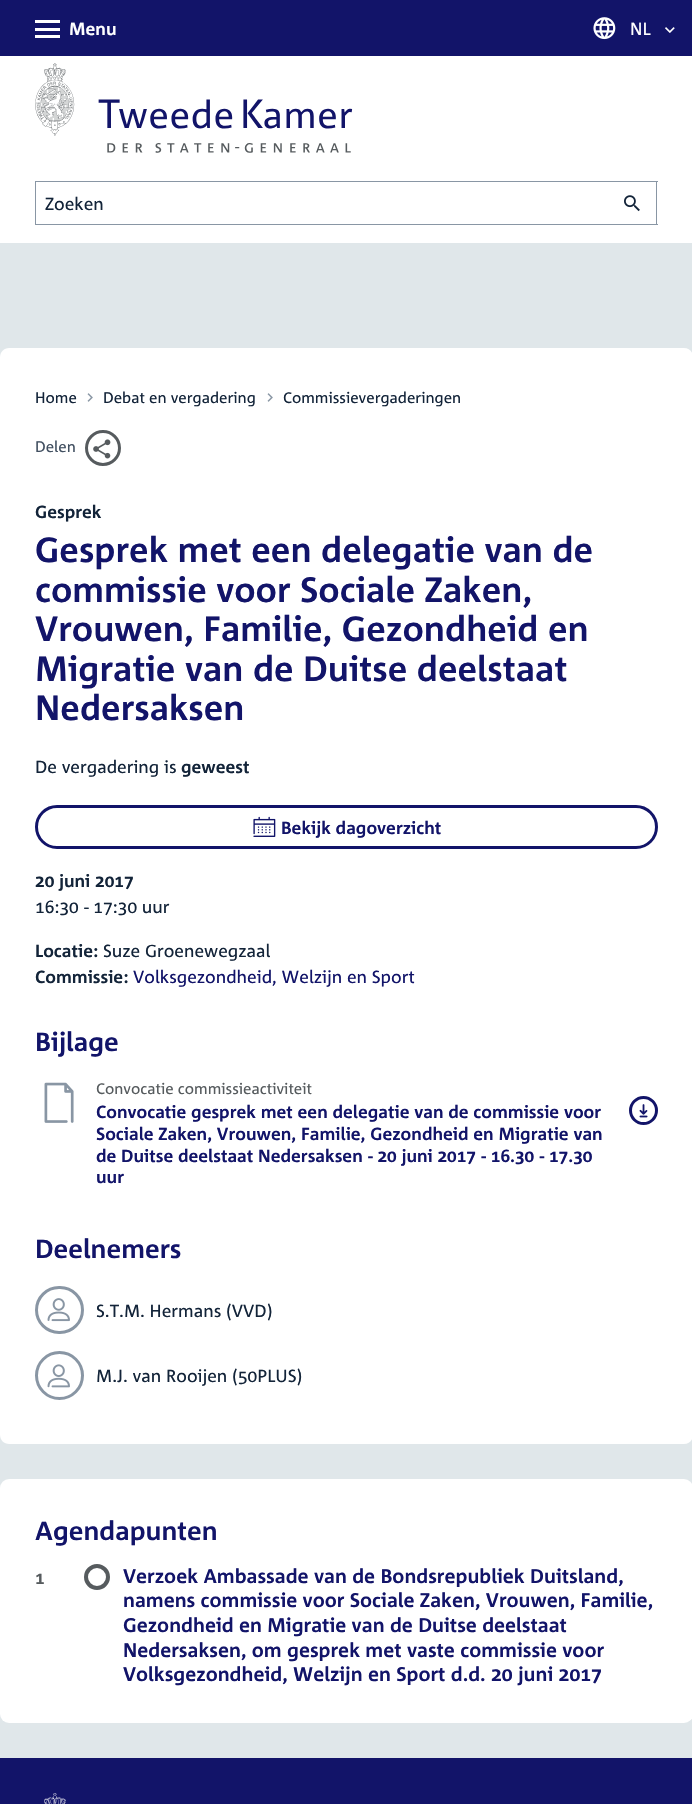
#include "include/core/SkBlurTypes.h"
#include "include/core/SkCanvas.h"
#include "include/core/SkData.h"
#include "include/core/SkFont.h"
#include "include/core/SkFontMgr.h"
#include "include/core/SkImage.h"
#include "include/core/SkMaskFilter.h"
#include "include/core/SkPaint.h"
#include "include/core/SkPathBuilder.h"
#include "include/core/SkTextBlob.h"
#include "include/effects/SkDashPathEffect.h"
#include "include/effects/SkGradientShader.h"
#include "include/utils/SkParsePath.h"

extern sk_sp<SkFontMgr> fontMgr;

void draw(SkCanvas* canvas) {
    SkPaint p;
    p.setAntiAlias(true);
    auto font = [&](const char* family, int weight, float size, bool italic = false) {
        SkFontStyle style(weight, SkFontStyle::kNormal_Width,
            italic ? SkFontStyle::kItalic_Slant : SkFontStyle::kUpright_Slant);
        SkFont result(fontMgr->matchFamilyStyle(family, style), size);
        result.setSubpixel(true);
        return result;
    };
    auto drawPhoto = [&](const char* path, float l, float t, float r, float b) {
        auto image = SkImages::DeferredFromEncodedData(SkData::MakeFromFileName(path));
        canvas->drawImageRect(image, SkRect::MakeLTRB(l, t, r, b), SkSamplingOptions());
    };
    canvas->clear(0xFFFFFFFF);
    {
        const struct { float l, t, r, b; SkColor color; } items[] = {
            {0, 0, 692, 56, 0xFF121469},
            {35, 20, 60, 23, 0xFFFFFFFF},
            {35, 28, 60, 31, 0xFFFFFFFF},
            {35, 35, 60, 38, 0xFFFFFFFF},
        };
        for (auto [l, t, r, b, color] : items) {
            p.setColor(color);
            canvas->drawRect(SkRect::MakeLTRB(l, t, r, b), p);
        }
    }
    auto font1 = font("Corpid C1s", 700, 17.5f);
    canvas->drawString("Menu", 69, 35, font1, p);
    drawPhoto("media/1.png", 593, 17, 616, 40);
    auto font2 = font("Corpid C1s", 400, 17.5f);
    canvas->drawString("NL", 630, 35, font2, p);
    drawPhoto("media/2.png", 665, 27, 675, 33);
    drawPhoto("media/3.png", 35, 63, 353, 153);
    {
        const struct { float l, t, r, b; SkColor color; } items[] = {
            {35, 181, 658, 182, 0xFF8996A4},
            {35, 224, 609, 225, 0xFF8996A4},
            {35, 181, 36, 225, 0xFF8996A4},
        };
        for (auto [l, t, r, b, color] : items) {
            p.setColor(color);
            canvas->drawRect(SkRect::MakeLTRB(l, t, r, b), p);
        }
    }
    p.setColor(0xFF132439);
    canvas->drawString("Zoeken", 45, 210, font2, p);
    p.setColor(0xFF8996A4);
    canvas->drawRect(SkRect::MakeLTRB(656, 181, 657, 225), p);
    canvas->drawRect(SkRect::MakeLTRB(609, 224, 658, 225), p);
    drawPhoto("media/4.png", 624, 195, 640, 212);
    p.setColor(0xFFE0E7EA);
    canvas->drawRect(SkRect::MakeLTRB(0, 243, 692, 357), p);
    p.setColor(0xFFFFFFFF);
    canvas->drawPath(SkPathBuilder().moveTo(9, 348).lineTo(684, 348).cubicTo(689, 348, 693, 352, 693, 357).lineTo(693, 501).lineTo(0, 501).lineTo(0, 357).cubicTo(0, 352, 4, 348, 9, 348).close().detach(), p);
    auto font3 = font("Corpid C1s", 400, 15.25f);
    p.setColor(0xFF132439);
    canvas->drawString("Home", 35, 403, font3, p);
    drawPhoto("media/5.png", 87, 393, 93, 402);
    canvas->drawString("Debat en vergadering", 103, 403, font3, p);
    drawPhoto("media/5.png", 267, 393, 273, 402);
    canvas->drawString("Commissievergaderingen", 283, 403, font3, p);
    p.setColor(0xFF425061);
    canvas->drawString("Delen", 35, 452, font3, p);
    p.setStyle(SkPaint::kStroke_Style);
    p.setStrokeWidth(3);
    p.setColor(0xFF565B5E);
    canvas->drawCircle(103, 448, 16.5f, p);
    drawPhoto("media/6.png", 93, 439, 111, 459);
    p.setStyle(SkPaint::kFill_Style);
    p.setColor(0xFFE0E7EA);
    canvas->drawRect(SkRect::MakeLTRB(0, 1435, 692, 1758), p);
    p.setColor(0xFFFFFFFF);
    canvas->drawPath(SkPathBuilder().moveTo(0, 501).lineTo(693, 501).lineTo(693, 1435).cubicTo(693, 1440, 689, 1444, 684, 1444).lineTo(9, 1444).cubicTo(4, 1444, 0, 1440, 0, 1435).close().detach(), p);
    p.setColor(0xFF132439);
    canvas->drawString("Gesprek", 35, 518, font1, p);
    auto font4 = font("Corpid C1s", 700, 35);
    p.setColor(0xFF121469);
    {
        const struct { const char* s; float x, y; } items[] = {
            {"Gesprek met een delegatie van de", 35, 562},
            {"commissie voor Sociale Zaken,", 35, 602},
            {"Vrouwen, Familie, Gezondheid en", 35, 641},
            {"Migratie van de Duitse deelstaat", 35, 681},
            {"Nedersaksen", 35, 720},
        };
        for (auto [s, x, y] : items) {
            canvas->drawString(s, x, y, font4, p);
        }
    }
    p.setColor(0xFF132439);
    canvas->drawString("De vergadering is", 35, 773, font2, p);
    canvas->drawString("geweest", 181, 773, font1, p);
    p.setStyle(SkPaint::kStroke_Style);
    p.setColor(0xFF121469);
    canvas->drawRoundRect(SkRect::MakeLTRB(36.5f, 806.5f, 656.5f, 847.5f), 20.5f, 20.5f, p);
    drawPhoto("media/7.png", 253, 816, 276, 837);
    p.setStyle(SkPaint::kFill_Style);
    canvas->drawString("Bekijk dagoverzicht", 281, 834, font1, p);
    p.setColor(0xFF132439);
    canvas->drawString("20 juni 2017", 35, 887, font1, p);
    canvas->drawString("16:30 - 17:30 uur", 35, 913, font2, p);
    canvas->drawString("Locatie:", 35, 957, font1, p);
    canvas->drawString("Suze Groenewegzaal", 103, 957, font2, p);
    canvas->drawString("Commissie:", 35, 983, font1, p);
    p.setColor(0xFF121469);
    canvas->drawString("Volksgezondheid, Welzijn en Sport", 133, 983, font2, p);
    auto font5 = font("Corpid C1s", 700, 26.25f);
    canvas->drawString("Bijlage", 35, 1051, font5, p);
    drawPhoto("media/8.png", 44, 1082, 74, 1123);
    p.setColor(0xFF565B5E);
    canvas->drawString("Convocatie commissieactiviteit", 96, 1094, font3, p);
    p.setColor(0xFF121469);
    {
        const struct { const char* s; float x, y; } items[] = {
            {"Convocatie gesprek met een delegatie van de commissie voor", 96, 1118},
            {"Sociale Zaken, Vrouwen, Familie, Gezondheid en Migratie van", 96, 1140},
            {"de Duitse deelstaat Nedersaksen - 20 juni 2017 - 16.30 - 17.30", 96, 1162},
            {"uur", 96, 1183},
        };
        for (auto [s, x, y] : items) {
            canvas->drawString(s, x, y, font1, p);
        }
    }
    p.setStyle(SkPaint::kStroke_Style);
    canvas->drawCircle(643.5f, 1110.5f, 13, p);
    drawPhoto("media/9.png", 639, 1104, 648, 1118);
    p.setStyle(SkPaint::kFill_Style);
    canvas->drawString("Deelnemers", 35, 1258, font5, p);
    p.setStyle(SkPaint::kStroke_Style);
    p.setColor(0xFF8996A4);
    canvas->drawRoundRect(SkRect::MakeLTRB(36.5f, 1287.5f, 82.5f, 1332.5f), 22.5f, 22.5f, p);
    drawPhoto("media/10.png", 47, 1298, 70, 1322);
    p.setStyle(SkPaint::kFill_Style);
    p.setColor(0xFF132439);
    canvas->drawString("S.T.M. Hermans (VVD)", 96, 1317, font2, p);
    p.setStyle(SkPaint::kStroke_Style);
    p.setColor(0xFF8996A4);
    canvas->drawCircle(59.5f, 1375.5f, 23, p);
    drawPhoto("media/11.png", 47, 1364, 70, 1388);
    p.setStyle(SkPaint::kFill_Style);
    p.setColor(0xFF132439);
    canvas->drawString("M.J. van Rooijen (50PLUS)", 96, 1382, font2, p);
    p.setColor(0xFFFFFFFF);
    canvas->drawRoundRect(SkRect::MakeLTRB(0, 1479, 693, 1723), 9, 9, p);
    p.setColor(0xFF121469);
    canvas->drawString("Agendapunten", 35, 1540, font5, p);
    p.setColor(0xFF565B5E);
    canvas->drawString("1", 35, 1584, font1, p);
    p.setStyle(SkPaint::kStroke_Style);
    p.setStrokeWidth(4);
    canvas->drawCircle(97, 1577, 11, p);
    auto font6 = font("Corpid C1s", 700, 19.7f);
    p.setStyle(SkPaint::kFill_Style);
    p.setColor(0xFF121469);
    {
        const struct { const char* s; float x, y; } items[] = {
            {"Verzoek Ambassade van de Bondsrepubliek Duitsland,", 123, 1583},
            {"namens commissie voor Sociale Zaken, Vrouwen, Familie,", 123, 1607},
            {"Gezondheid en Migratie van de Duitse deelstaat", 123, 1632},
            {"Nedersaksen, om gesprek met vaste commissie voor", 123, 1657},
            {"Volksgezondheid, Welzijn en Sport d.d. 20 juni 2017", 123, 1681},
        };
        for (auto [s, x, y] : items) {
            canvas->drawString(s, x, y, font6, p);
        }
    }
    canvas->drawRect(SkRect::MakeLTRB(0, 1758, 692, 1804), p);
    drawPhoto("media/12.png", 44, 1793, 66, 1804);
}
